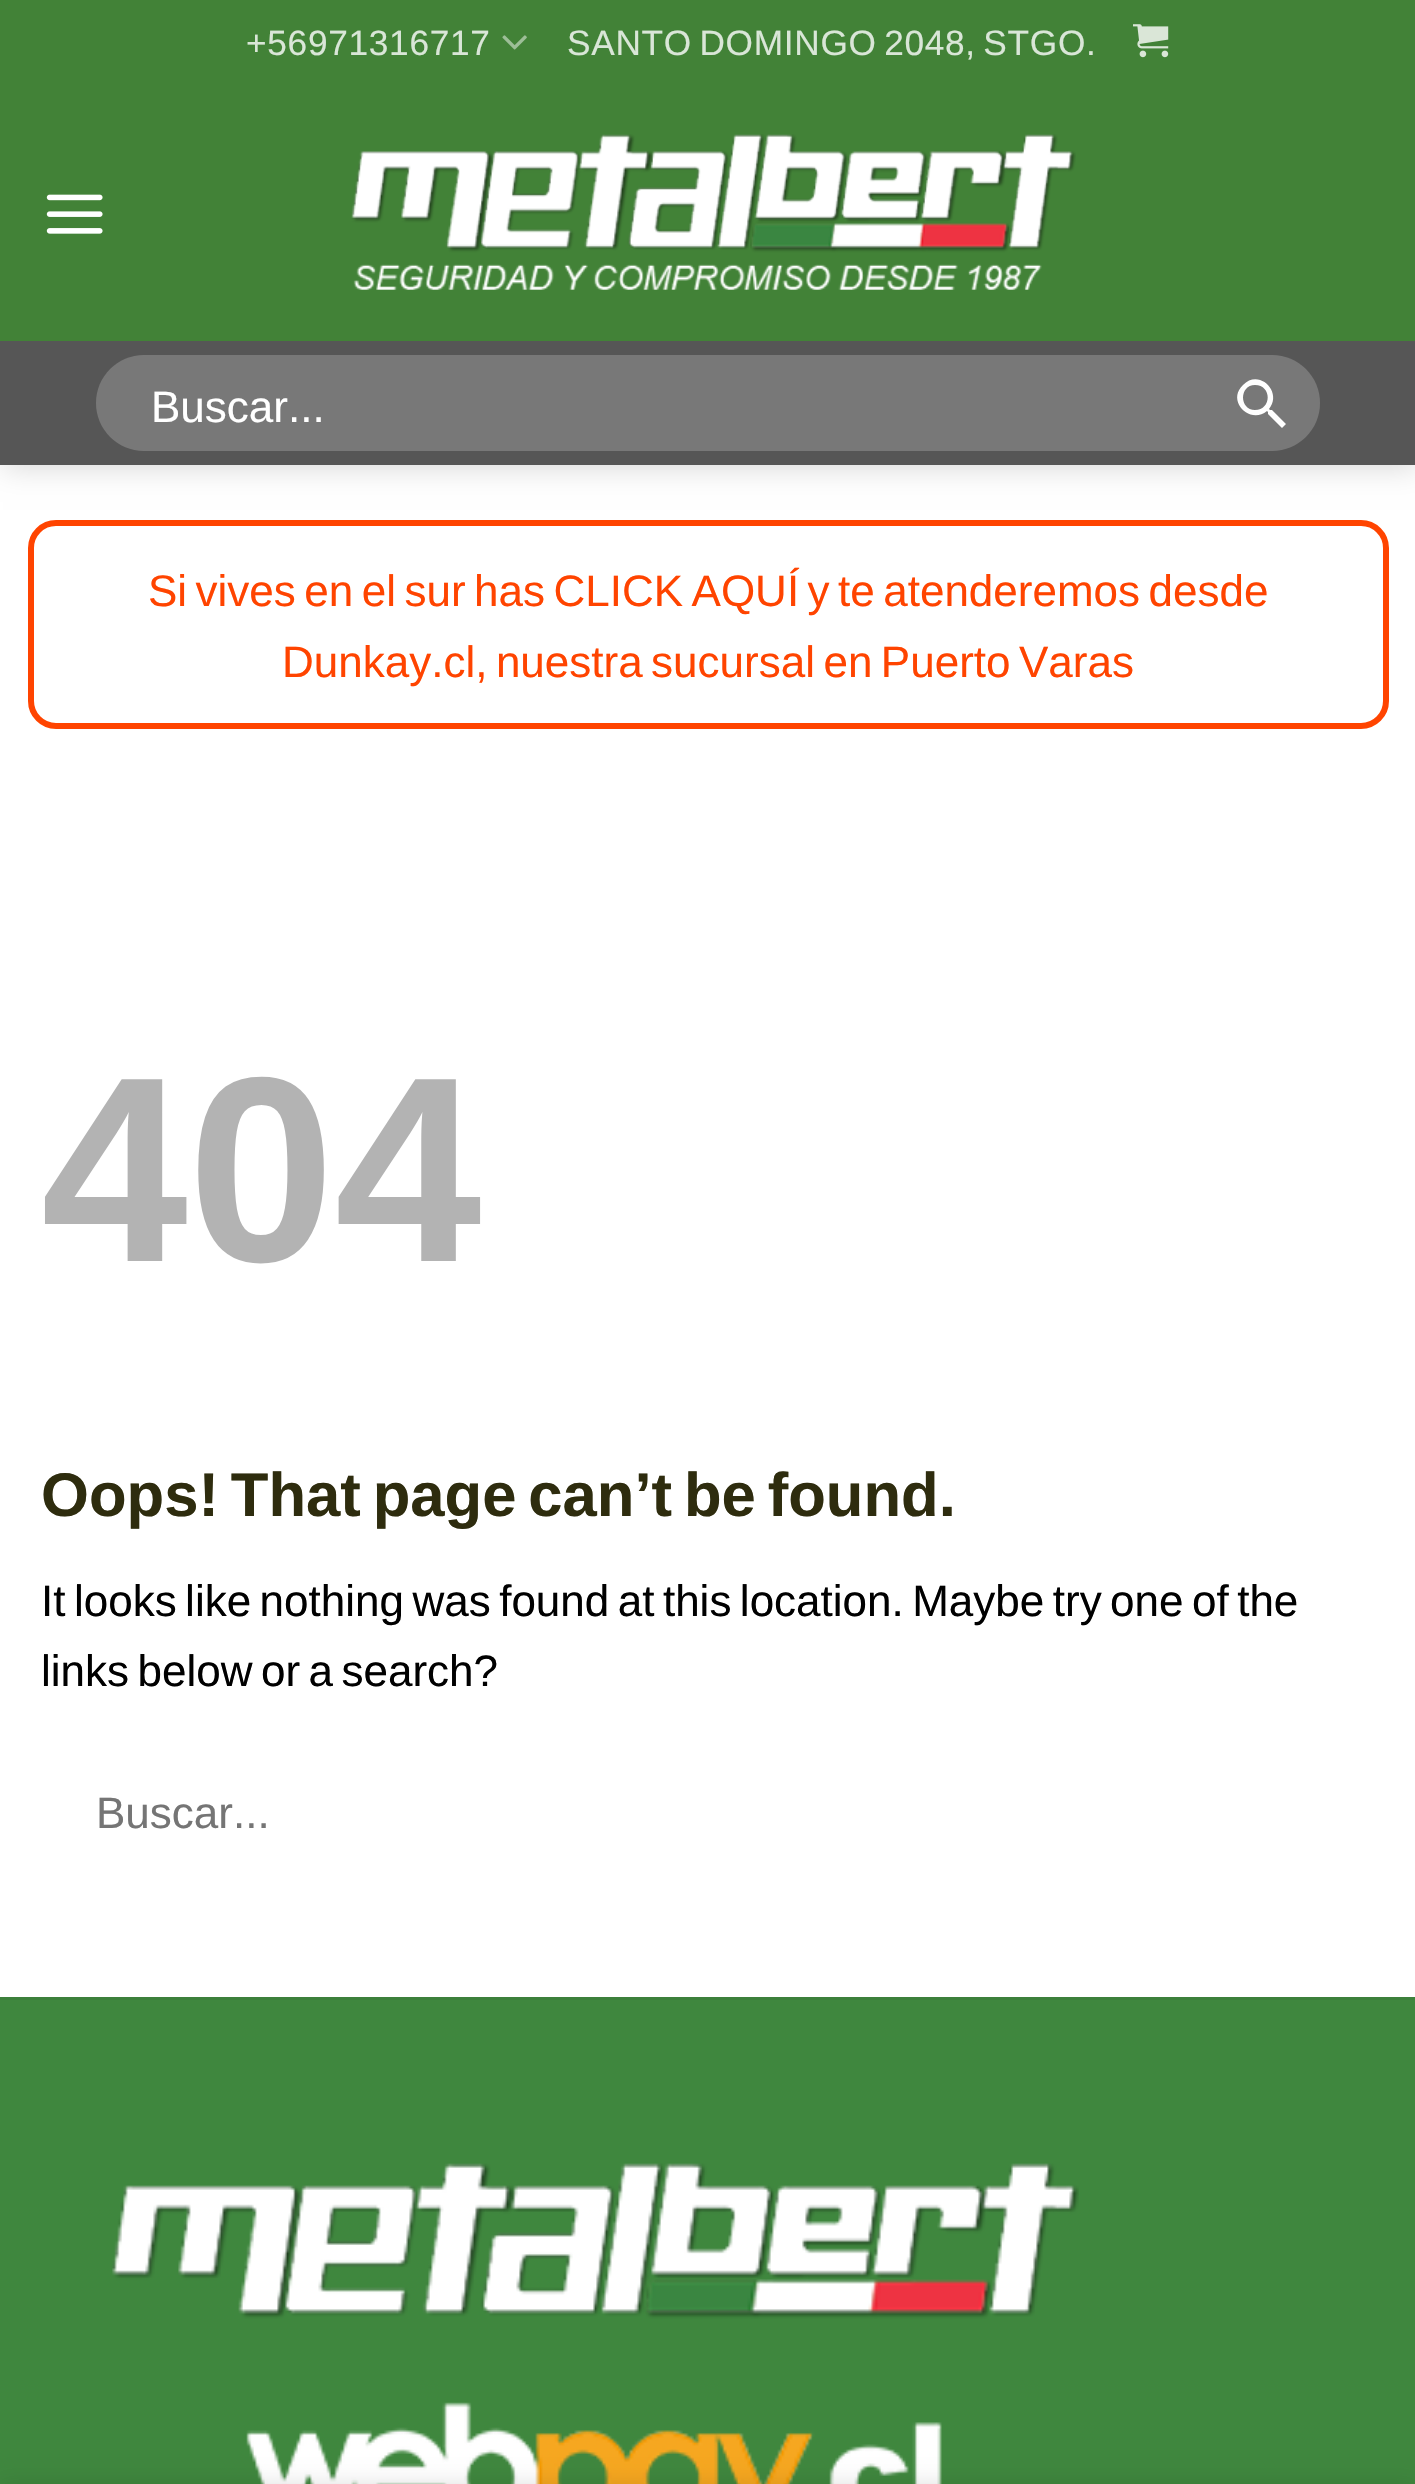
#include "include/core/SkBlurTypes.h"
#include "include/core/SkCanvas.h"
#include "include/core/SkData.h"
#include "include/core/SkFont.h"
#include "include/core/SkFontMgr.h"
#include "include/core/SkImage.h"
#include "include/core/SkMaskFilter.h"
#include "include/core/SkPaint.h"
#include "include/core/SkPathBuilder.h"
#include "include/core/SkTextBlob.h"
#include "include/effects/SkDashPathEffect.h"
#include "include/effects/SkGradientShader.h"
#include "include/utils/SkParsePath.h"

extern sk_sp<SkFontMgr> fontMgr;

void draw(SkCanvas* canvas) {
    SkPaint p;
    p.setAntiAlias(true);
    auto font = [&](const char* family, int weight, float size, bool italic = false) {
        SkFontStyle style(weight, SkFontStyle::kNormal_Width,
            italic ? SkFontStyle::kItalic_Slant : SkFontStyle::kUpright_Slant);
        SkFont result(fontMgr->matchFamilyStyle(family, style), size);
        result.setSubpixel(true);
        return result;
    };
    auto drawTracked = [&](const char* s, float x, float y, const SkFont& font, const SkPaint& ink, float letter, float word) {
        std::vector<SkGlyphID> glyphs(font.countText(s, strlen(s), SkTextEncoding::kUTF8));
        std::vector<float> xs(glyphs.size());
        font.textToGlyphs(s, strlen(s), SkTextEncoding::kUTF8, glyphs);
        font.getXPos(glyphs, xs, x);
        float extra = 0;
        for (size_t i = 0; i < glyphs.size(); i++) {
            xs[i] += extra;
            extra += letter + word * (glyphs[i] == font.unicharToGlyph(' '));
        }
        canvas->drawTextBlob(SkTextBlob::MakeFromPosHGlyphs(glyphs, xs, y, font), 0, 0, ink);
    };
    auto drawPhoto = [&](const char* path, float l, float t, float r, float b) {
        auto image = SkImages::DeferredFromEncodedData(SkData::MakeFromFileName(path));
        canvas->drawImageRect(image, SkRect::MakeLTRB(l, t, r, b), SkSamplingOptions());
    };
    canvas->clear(0xFFFFFFFF);
    p.setColor(0x26000000);
    p.setMaskFilter(SkMaskFilter::MakeBlur(kNormal_SkBlurStyle, 14));
    canvas->drawRect(SkRect::MakeLTRB(3, 3, 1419, 468), p);
    p.setMaskFilter(nullptr);
    p.setColor(0xFF428237);
    canvas->drawRect(SkRect::MakeLTRB(0, 0, 1415, 341), p);
    auto font1 = font("Liberation Sans", 400, 35.25f);
    p.setColor(0xFFD9E6D7);
    drawTracked("+56971316717", 246, 55, font1, p, 0.7f, 0);
    drawPhoto("media/1.png", 502, 35, 527, 50);
    drawTracked("SANTO DOMINGO 2048, STGO.", 567, 55, font1, p, 0.7f, -3);
    drawPhoto("media/2.png", 1133, 24, 1169, 58);
    drawPhoto("media/3.png", 46, 194, 103, 234);
    drawPhoto("media/4.png", 351, 134, 1076, 290);
    p.setColor(0xFF565656);
    canvas->drawRect(SkRect::MakeLTRB(0, 341, 1415, 465), p);
    p.setColor(0xFF787878);
    canvas->drawPath(SkPathBuilder().moveTo(144, 355).lineTo(1205, 355).lineTo(1205, 451).lineTo(144, 451).cubicTo(117.5f, 451, 96, 429.5f, 96, 403).cubicTo(96, 376.5f, 117.5f, 355, 144, 355).close().detach(), p);
    auto font2 = font("Liberation Sans", 400, 44);
    p.setColor(0xFFFFFFFF);
    canvas->drawString("Buscar...", 151, 422, font2, p);
    p.setColor(0xFF787878);
    canvas->drawPath(SkPathBuilder().moveTo(1205, 355).lineTo(1272, 355).cubicTo(1298.5f, 355, 1320, 376.5f, 1320, 403).cubicTo(1320, 429.5f, 1298.5f, 451, 1272, 451).lineTo(1205, 451).close().detach(), p);
    p.setColor(0xFFFFFFFF);
    canvas->drawPath(SkPathBuilder().moveTo(1272, 410).lineTo(1270, 410).lineTo(1269, 409).cubicTo(1283, 392, 1259, 368, 1243, 385).cubicTo(1226, 401, 1250, 425, 1267, 411).lineTo(1268, 412).lineTo(1268, 414).lineTo(1282, 428).lineTo(1286, 424).close().moveTo(1255, 410).cubicTo(1239, 410, 1239, 385, 1255, 385).cubicTo(1272, 385, 1272, 410, 1255, 410).close().detach(), p);
    p.setStyle(SkPaint::kStroke_Style);
    p.setStrokeWidth(6);
    p.setColor(0xFFFF4400);
    canvas->drawRoundRect(SkRect::MakeLTRB(31, 523, 1386, 726), 25, 25, p);
    p.setStyle(SkPaint::kFill_Style);
    drawTracked("Si vives en el sur has CLICK AQUÍ y te atenderemos desde", 148, 606, font2, p, 0, -3.75f);
    drawTracked("Dunkay.cl, nuestra sucursal en Puerto Varas", 282, 677, font2, p, 0, -3.75f);
    auto font3 = font("Liberation Sans", 700, 264);
    p.setColor(0xFFB3B3B3);
    canvas->drawString("404", 41, 1261, font3, p);
    auto font4 = font("Liberation Sans", 700, 61.6f);
    p.setColor(0xFF2E2C0E);
    drawTracked("Oops! That page can’t be found.", 41, 1516, font4, p, 0, -5.25f);
    p.setColor(0xFF000000);
    drawTracked("It looks like nothing was found at this location. Maybe try one of the", 41, 1616, font2, p, 0, -3.75f);
    drawTracked("links below or a search?", 41, 1686, font2, p, 0, -3.75f);
    p.setColor(0xFF757575);
    canvas->drawString("Buscar...", 96, 1828, font2, p);
    p.setColor(0xFF3F873E);
    canvas->drawRect(SkRect::MakeLTRB(0, 2000, 1415, 2484), p);
    p.setColor(0xFF3C803B);
    canvas->drawRect(SkRect::MakeLTRB(0, 1997, 1415, 2000), p);
    drawPhoto("media/5.png", 112, 2163, 1079, 2484);
    p.setColor(0x24000000);
    p.setMaskFilter(SkMaskFilter::MakeBlur(kNormal_SkBlurStyle, 12.5f));
    canvas->drawRect(SkRect::MakeLTRB(0, 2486, 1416, 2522), p);
    p.setMaskFilter(nullptr);
}
